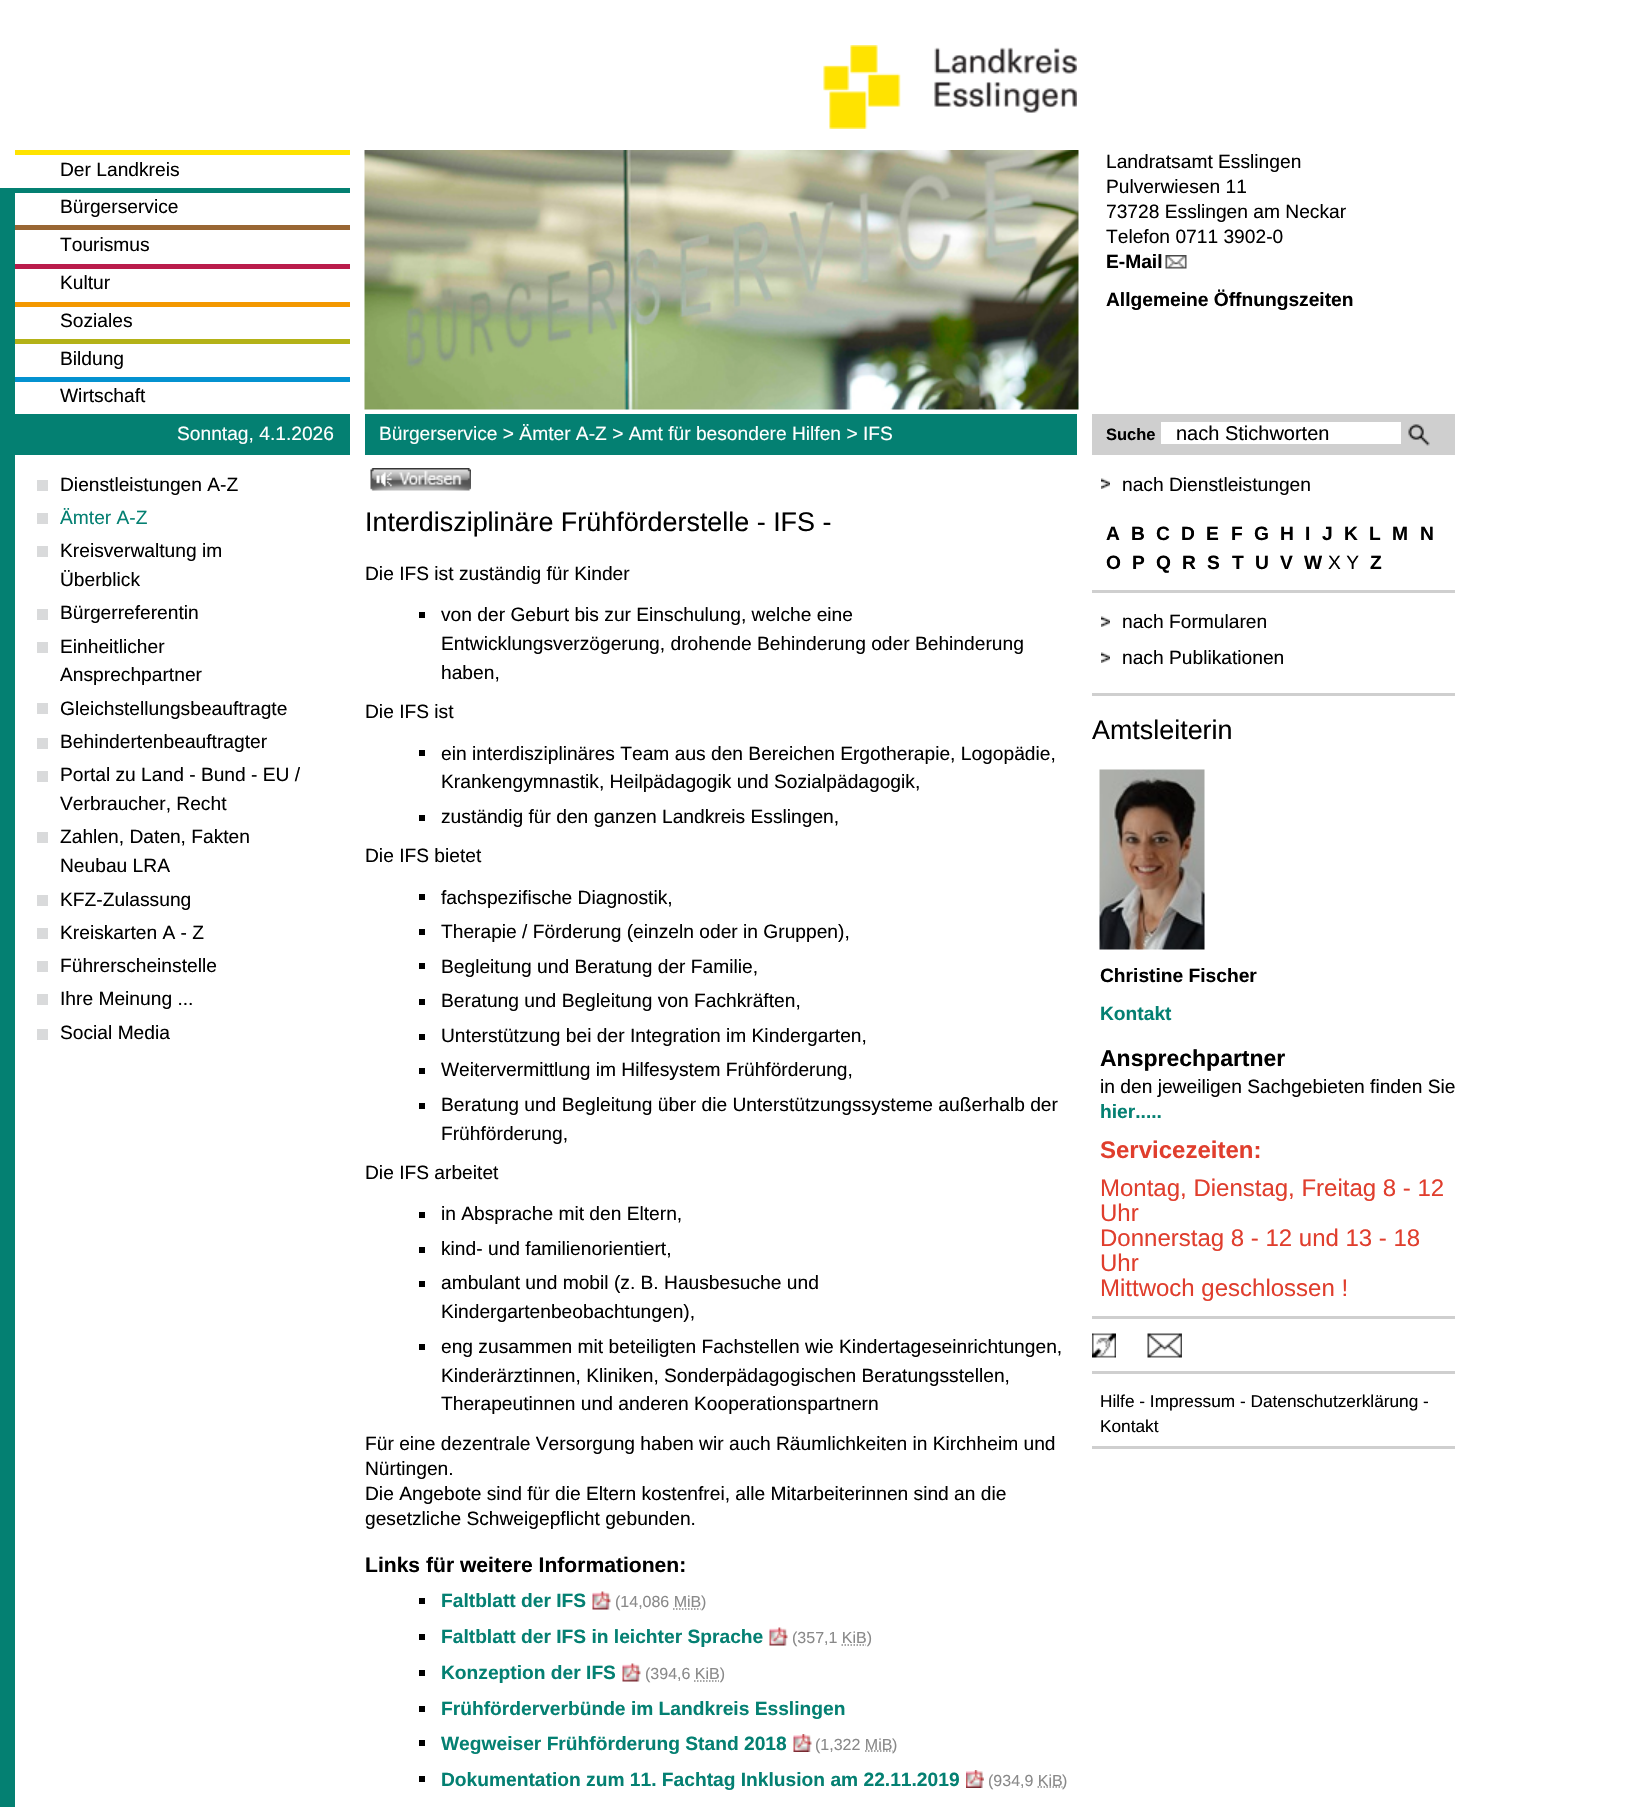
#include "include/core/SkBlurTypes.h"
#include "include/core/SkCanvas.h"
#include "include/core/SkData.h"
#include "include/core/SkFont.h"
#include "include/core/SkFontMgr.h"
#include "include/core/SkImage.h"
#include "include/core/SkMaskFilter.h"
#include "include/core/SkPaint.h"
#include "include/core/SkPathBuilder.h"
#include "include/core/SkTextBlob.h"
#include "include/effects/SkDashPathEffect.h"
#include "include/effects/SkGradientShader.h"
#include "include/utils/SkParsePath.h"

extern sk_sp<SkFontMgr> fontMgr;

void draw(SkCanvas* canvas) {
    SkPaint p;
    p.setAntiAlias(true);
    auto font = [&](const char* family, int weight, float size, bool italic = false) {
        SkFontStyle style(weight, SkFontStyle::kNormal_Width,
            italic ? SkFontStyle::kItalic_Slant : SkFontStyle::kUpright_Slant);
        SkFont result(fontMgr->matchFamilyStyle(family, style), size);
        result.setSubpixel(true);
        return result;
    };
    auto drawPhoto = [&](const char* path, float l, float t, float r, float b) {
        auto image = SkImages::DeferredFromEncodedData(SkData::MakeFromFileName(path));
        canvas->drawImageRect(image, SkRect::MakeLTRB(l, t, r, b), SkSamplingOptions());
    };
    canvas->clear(0xFFFFFFFF);
    p.setColor(0xFFFFE300);
    canvas->drawRect(SkRect::MakeLTRB(15, 150, 350, 155), p);
    auto font1 = font("Liberation Sans", 400, 19.2f);
    p.setColor(0xFF000000);
    canvas->drawString("Der Landkreis", 60, 176, font1, p);
    p.setColor(0xFF048072);
    canvas->drawRect(SkRect::MakeLTRB(0, 188, 15, 414), p);
    canvas->drawRect(SkRect::MakeLTRB(15, 188, 350, 193), p);
    p.setColor(0xFF000000);
    canvas->drawString("Bürgerservice", 60, 213, font1, p);
    p.setColor(0xFF996633);
    canvas->drawRect(SkRect::MakeLTRB(15, 225, 350, 230), p);
    p.setColor(0xFF000000);
    canvas->drawString("Tourismus", 60, 251, font1, p);
    p.setColor(0xFFBA1C4B);
    canvas->drawRect(SkRect::MakeLTRB(15, 264, 350, 269), p);
    p.setColor(0xFF000000);
    canvas->drawString("Kultur", 60, 289, font1, p);
    p.setColor(0xFFF39800);
    canvas->drawRect(SkRect::MakeLTRB(15, 302, 350, 307), p);
    p.setColor(0xFF000000);
    canvas->drawString("Soziales", 60, 327, font1, p);
    p.setColor(0xFFB4B217);
    canvas->drawRect(SkRect::MakeLTRB(15, 339, 350, 344), p);
    p.setColor(0xFF000000);
    canvas->drawString("Bildung", 60, 365, font1, p);
    p.setColor(0xFF0492D0);
    canvas->drawRect(SkRect::MakeLTRB(15, 377, 350, 382), p);
    p.setColor(0xFF000000);
    canvas->drawString("Wirtschaft", 60, 402, font1, p);
    drawPhoto("media/1.png", 364, 150, 1079, 410);
    drawPhoto("media/2.png", 823, 45, 1077, 129);
    {
        const struct { const char* s; float x, y; } items[] = {
            {"Landratsamt Esslingen", 1106, 168},
            {"Pulverwiesen 11", 1106, 193},
            {"73728 Esslingen am Neckar", 1106, 218},
            {"Telefon 0711 3902-0", 1106, 243},
        };
        for (auto [s, x, y] : items) {
            canvas->drawString(s, x, y, font1, p);
        }
    }
    auto font2 = font("Liberation Sans", 700, 19.2f);
    canvas->drawString("E-Mail", 1106, 268, font2, p);
    drawPhoto("media/3.png", 1165, 255, 1187, 269);
    canvas->drawString("Allgemeine Öffnungszeiten", 1106, 306, font2, p);
    p.setColor(0xFF048072);
    canvas->drawRect(SkRect::MakeLTRB(0, 414, 350, 455), p);
    p.setColor(0xFFFFFFFF);
    canvas->drawString("Sonntag, 4.1.2026", 177, 440, font1, p);
    p.setColor(0xFF048072);
    canvas->drawRect(SkRect::MakeLTRB(365, 414, 1077, 455), p);
    p.setColor(0xFFFFFFFF);
    canvas->drawString("Bürgerservice > Ämter A-Z > Amt für besondere Hilfen > IFS", 379, 440, font1, p);
    p.setColor(0xFFCFCFCF);
    canvas->drawRect(SkRect::MakeLTRB(1092, 414, 1455, 455), p);
    auto font3 = font("Liberation Sans", 700, 16.5f);
    p.setColor(0xFF000000);
    canvas->drawString("Suche", 1106, 440, font3, p);
    p.setColor(0xFFFFFFFF);
    canvas->drawRect(SkRect::MakeLTRB(1161, 422, 1401, 444), p);
    auto font4 = font("Liberation Sans", 400, 20);
    p.setColor(0xFF000000);
    canvas->drawString("nach Stichworten", 1176, 440, font4, p);
    drawPhoto("media/4.png", 1408, 424, 1430, 446);
    p.setColor(0xFF048072);
    canvas->drawRect(SkRect::MakeLTRB(0, 455, 15, 1807), p);
    p.setColor(0xFFD9DADB);
    canvas->drawRect(SkRect::MakeLTRB(37, 480, 48, 491), p);
    p.setColor(0xFF000000);
    canvas->drawString("Dienstleistungen A-Z", 60, 491, font1, p);
    p.setColor(0xFFD9DADB);
    canvas->drawRect(SkRect::MakeLTRB(37, 513, 48, 524), p);
    p.setColor(0xFF048072);
    canvas->drawString("Ämter A-Z", 60, 524, font1, p);
    p.setColor(0xFFD9DADB);
    canvas->drawRect(SkRect::MakeLTRB(37, 546, 48, 557), p);
    p.setColor(0xFF000000);
    canvas->drawString("Kreisverwaltung im", 60, 557, font1, p);
    canvas->drawString("Überblick", 60, 586, font1, p);
    p.setColor(0xFFD9DADB);
    canvas->drawRect(SkRect::MakeLTRB(37, 609, 48, 620), p);
    p.setColor(0xFF000000);
    canvas->drawString("Bürgerreferentin", 60, 619, font1, p);
    p.setColor(0xFFD9DADB);
    canvas->drawRect(SkRect::MakeLTRB(37, 642, 48, 653), p);
    p.setColor(0xFF000000);
    canvas->drawString("Einheitlicher", 60, 653, font1, p);
    canvas->drawString("Ansprechpartner", 60, 681, font1, p);
    p.setColor(0xFFD9DADB);
    canvas->drawRect(SkRect::MakeLTRB(37, 703, 48, 714), p);
    p.setColor(0xFF000000);
    canvas->drawString("Gleichstellungsbeauftragte", 60, 715, font1, p);
    p.setColor(0xFFD9DADB);
    canvas->drawRect(SkRect::MakeLTRB(37, 738, 48, 749), p);
    p.setColor(0xFF000000);
    canvas->drawString("Behindertenbeauftragter", 60, 748, font1, p);
    p.setColor(0xFFD9DADB);
    canvas->drawRect(SkRect::MakeLTRB(37, 771, 48, 782), p);
    p.setColor(0xFF000000);
    canvas->drawString("Portal zu Land - Bund - EU /", 60, 781, font1, p);
    canvas->drawString("Verbraucher, Recht", 60, 810, font1, p);
    p.setColor(0xFFD9DADB);
    canvas->drawRect(SkRect::MakeLTRB(37, 832, 48, 843), p);
    p.setColor(0xFF000000);
    canvas->drawString("Zahlen, Daten, Fakten", 60, 843, font1, p);
    canvas->drawString("Neubau LRA", 60, 872, font1, p);
    p.setColor(0xFFD9DADB);
    canvas->drawRect(SkRect::MakeLTRB(37, 895, 48, 906), p);
    p.setColor(0xFF000000);
    canvas->drawString("KFZ-Zulassung", 60, 906, font1, p);
    p.setColor(0xFFD9DADB);
    canvas->drawRect(SkRect::MakeLTRB(37, 928, 48, 939), p);
    p.setColor(0xFF000000);
    canvas->drawString("Kreiskarten A - Z", 60, 939, font1, p);
    p.setColor(0xFFD9DADB);
    canvas->drawRect(SkRect::MakeLTRB(37, 961, 48, 972), p);
    p.setColor(0xFF000000);
    canvas->drawString("Führerscheinstelle", 60, 972, font1, p);
    p.setColor(0xFFD9DADB);
    canvas->drawRect(SkRect::MakeLTRB(37, 994, 48, 1005), p);
    p.setColor(0xFF000000);
    canvas->drawString("Ihre Meinung ...", 60, 1005, font1, p);
    p.setColor(0xFFD9DADB);
    canvas->drawRect(SkRect::MakeLTRB(37, 1029, 48, 1040), p);
    p.setColor(0xFF000000);
    canvas->drawString("Social Media", 60, 1039, font1, p);
    drawPhoto("media/5.png", 370, 468, 471, 491);
    auto font5 = font("Liberation Sans", 400, 26.9f);
    canvas->drawString("Interdisziplinäre Frühförderstelle - IFS -", 365, 531, font5, p);
    canvas->drawString("Die IFS ist zuständig für Kinder", 365, 580, font1, p);
    canvas->drawRect(SkRect::MakeLTRB(419, 612, 425, 618), p);
    {
        const struct { const char* s; float x, y; } items[] = {
            {"von der Geburt bis zur Einschulung, welche eine", 441, 621},
            {"Entwicklungsverzögerung, drohende Behinderung oder Behinderung", 441, 650},
            {"haben,", 441, 679},
            {"Die IFS ist", 365, 718},
        };
        for (auto [s, x, y] : items) {
            canvas->drawString(s, x, y, font1, p);
        }
    }
    canvas->drawRect(SkRect::MakeLTRB(419, 750, 425, 756), p);
    canvas->drawString("ein interdisziplinäres Team aus den Bereichen Ergotherapie, Logopädie,", 441, 760, font1, p);
    canvas->drawString("Krankengymnastik, Heilpädagogik und Sozialpädagogik,", 441, 788, font1, p);
    canvas->drawRect(SkRect::MakeLTRB(419, 815, 425, 821), p);
    canvas->drawString("zuständig für den ganzen Landkreis Esslingen,", 441, 823, font1, p);
    canvas->drawString("Die IFS bietet", 365, 862, font1, p);
    canvas->drawRect(SkRect::MakeLTRB(419, 894, 425, 900), p);
    canvas->drawString("fachspezifische Diagnostik,", 441, 904, font1, p);
    canvas->drawRect(SkRect::MakeLTRB(419, 929, 425, 935), p);
    canvas->drawString("Therapie / Förderung (einzeln oder in Gruppen),", 441, 938, font1, p);
    canvas->drawRect(SkRect::MakeLTRB(419, 963, 425, 969), p);
    canvas->drawString("Begleitung und Beratung der Familie,", 441, 973, font1, p);
    canvas->drawRect(SkRect::MakeLTRB(419, 999, 425, 1005), p);
    canvas->drawString("Beratung und Begleitung von Fachkräften,", 441, 1007, font1, p);
    canvas->drawRect(SkRect::MakeLTRB(419, 1034, 425, 1040), p);
    canvas->drawString("Unterstützung bei der Integration im Kindergarten,", 441, 1042, font1, p);
    canvas->drawRect(SkRect::MakeLTRB(419, 1068, 425, 1074), p);
    canvas->drawString("Weitervermittlung im Hilfesystem Frühförderung,", 441, 1076, font1, p);
    canvas->drawRect(SkRect::MakeLTRB(419, 1103, 425, 1109), p);
    {
        const struct { const char* s; float x, y; } items[] = {
            {"Beratung und Begleitung über die Unterstützungssysteme außerhalb der", 441, 1111},
            {"Frühförderung,", 441, 1140},
            {"Die IFS arbeitet", 365, 1179},
        };
        for (auto [s, x, y] : items) {
            canvas->drawString(s, x, y, font1, p);
        }
    }
    canvas->drawRect(SkRect::MakeLTRB(419, 1212, 425, 1218), p);
    canvas->drawString("in Absprache mit den Eltern,", 441, 1220, font1, p);
    canvas->drawRect(SkRect::MakeLTRB(419, 1247, 425, 1253), p);
    canvas->drawString("kind- und familienorientiert,", 441, 1255, font1, p);
    canvas->drawRect(SkRect::MakeLTRB(419, 1281, 425, 1287), p);
    canvas->drawString("ambulant und mobil (z. B. Hausbesuche und", 441, 1289, font1, p);
    canvas->drawString("Kindergartenbeobachtungen),", 441, 1318, font1, p);
    canvas->drawRect(SkRect::MakeLTRB(419, 1344, 425, 1350), p);
    {
        const struct { const char* s; float x, y; } items[] = {
            {"eng zusammen mit beteiligten Fachstellen wie Kindertageseinrichtungen,", 441, 1353},
            {"Kinderärztinnen, Kliniken, Sonderpädagogischen Beratungsstellen,", 441, 1382},
            {"Therapeutinnen und anderen Kooperationspartnern", 441, 1410},
            {"Für eine dezentrale Versorgung haben wir auch Räumlichkeiten in Kirchheim und", 365, 1450},
            {"Nürtingen.", 365, 1475},
            {"Die Angebote sind für die Eltern kostenfrei, alle Mitarbeiterinnen sind an die", 365, 1500},
            {"gesetzliche Schweigepflicht gebunden.", 365, 1525},
        };
        for (auto [s, x, y] : items) {
            canvas->drawString(s, x, y, font1, p);
        }
    }
    auto font6 = font("Liberation Sans", 700, 21.1f);
    canvas->drawString("Links für weitere Informationen:", 365, 1572, font6, p);
    canvas->drawRect(SkRect::MakeLTRB(419, 1598, 425, 1604), p);
    p.setColor(0xFF048072);
    canvas->drawString("Faltblatt der IFS", 441, 1607, font2, p);
    drawPhoto("media/6.png", 592, 1591, 611, 1610);
    auto font7 = font("Liberation Sans", 400, 16);
    p.setColor(0xFF898989);
    canvas->drawString("(14,086 MiB", 615, 1607, font7, p);
    p.setStyle(SkPaint::kStroke_Style);
    p.setStrokeWidth(1.5f);
    p.setPathEffect(SkDashPathEffect::Make({{1.5f, 1.5f}}, 0));
    canvas->drawPath(SkPathBuilder().moveTo(673, 1609).lineTo(700.5f, 1609).detach(), p);
    p.setPathEffect(nullptr);
    p.setStyle(SkPaint::kFill_Style);
    canvas->drawString(")", 701, 1607, font7, p);
    p.setColor(0xFF000000);
    canvas->drawRect(SkRect::MakeLTRB(419, 1634, 425, 1640), p);
    p.setColor(0xFF048072);
    canvas->drawString("Faltblatt der IFS in leichter Sprache", 441, 1643, font2, p);
    drawPhoto("media/7.png", 769, 1627, 788, 1646);
    p.setColor(0xFF898989);
    canvas->drawString("(357,1 KiB)", 792, 1643, font7, p);
    p.setStyle(SkPaint::kStroke_Style);
    p.setPathEffect(SkDashPathEffect::Make({{1.5f, 1.5f}}, 0));
    canvas->drawPath(SkPathBuilder().moveTo(841.5f, 1645).lineTo(866, 1645).detach(), p);
    p.setPathEffect(nullptr);
    p.setStyle(SkPaint::kFill_Style);
    p.setColor(0xFF000000);
    canvas->drawRect(SkRect::MakeLTRB(419, 1670, 425, 1676), p);
    p.setColor(0xFF048072);
    canvas->drawString("Konzeption der IFS", 441, 1679, font2, p);
    drawPhoto("media/6.png", 622, 1663, 641, 1682);
    p.setColor(0xFF898989);
    canvas->drawString("(394,6 KiB)", 645, 1679, font7, p);
    p.setStyle(SkPaint::kStroke_Style);
    p.setPathEffect(SkDashPathEffect::Make({{1.5f, 1.5f}}, 0));
    canvas->drawPath(SkPathBuilder().moveTo(694, 1681).lineTo(719, 1681).detach(), p);
    p.setPathEffect(nullptr);
    p.setStyle(SkPaint::kFill_Style);
    p.setColor(0xFF000000);
    canvas->drawRect(SkRect::MakeLTRB(419, 1706, 425, 1712), p);
    p.setColor(0xFF048072);
    canvas->drawString("Frühförderverbünde im Landkreis Esslingen", 441, 1715, font2, p);
    p.setColor(0xFF000000);
    canvas->drawRect(SkRect::MakeLTRB(419, 1740, 425, 1746), p);
    p.setColor(0xFF048072);
    canvas->drawString("Wegweiser Frühförderung Stand 2018", 441, 1750, font2, p);
    drawPhoto("media/8.png", 793, 1734, 812, 1752);
    p.setColor(0xFF898989);
    canvas->drawString("(1,322 MiB", 815, 1750, font7, p);
    p.setStyle(SkPaint::kStroke_Style);
    p.setPathEffect(SkDashPathEffect::Make({{1.5f, 1.5f}}, 0));
    canvas->drawPath(SkPathBuilder().moveTo(865, 1751).lineTo(892.5f, 1751).detach(), p);
    p.setPathEffect(nullptr);
    p.setStyle(SkPaint::kFill_Style);
    canvas->drawString(")", 892, 1750, font7, p);
    p.setColor(0xFF000000);
    canvas->drawRect(SkRect::MakeLTRB(419, 1776, 425, 1782), p);
    p.setColor(0xFF048072);
    canvas->drawString("Dokumentation zum 11. Fachtag Inklusion am 22.11.2019", 441, 1786, font2, p);
    drawPhoto("media/9.png", 966, 1770, 984, 1788);
    p.setColor(0xFF898989);
    canvas->drawString("(934,9 KiB", 988, 1786, font7, p);
    p.setStyle(SkPaint::kStroke_Style);
    p.setPathEffect(SkDashPathEffect::Make({{1.5f, 1.5f}}, 0));
    canvas->drawPath(SkPathBuilder().moveTo(1037.5f, 1787).lineTo(1062.5f, 1787).detach(), p);
    p.setPathEffect(nullptr);
    p.setStyle(SkPaint::kFill_Style);
    canvas->drawString(")", 1062, 1786, font7, p);
    drawPhoto("media/10.png", 1101, 478, 1110, 489);
    p.setColor(0xFF000000);
    canvas->drawString("nach Dienstleistungen", 1122, 491, font1, p);
    {
        const struct { const char* s; float x, y; } items[] = {
            {"A", 1106, 540},
            {"B", 1131, 540},
            {"C", 1156, 540},
            {"D", 1181, 540},
            {"E", 1206, 540},
            {"F", 1231, 540},
            {"G", 1254, 540},
            {"H", 1280, 540},
            {"I", 1305, 540},
            {"J", 1322, 540},
            {"K", 1344, 540},
            {"L", 1369, 540},
            {"M", 1392, 540},
            {"N", 1420, 540},
            {"O", 1106, 569},
            {"P", 1132, 569},
            {"Q", 1156, 569},
            {"R", 1182, 569},
            {"S", 1207, 569},
            {"T", 1232, 569},
            {"U", 1255, 569},
            {"V", 1280, 569},
            {"W", 1304, 569},
        };
        for (auto [s, x, y] : items) {
            canvas->drawString(s, x, y, font2, p);
        }
    }
    canvas->drawString("X Y", 1328, 569, font1, p);
    canvas->drawString("Z", 1370, 569, font2, p);
    p.setColor(0xFFCFCFCF);
    canvas->drawRect(SkRect::MakeLTRB(1092, 590, 1455, 593), p);
    drawPhoto("media/10.png", 1101, 616, 1110, 627);
    p.setColor(0xFF000000);
    canvas->drawString("nach Formularen", 1122, 628, font1, p);
    drawPhoto("media/10.png", 1101, 652, 1110, 663);
    canvas->drawString("nach Publikationen", 1122, 664, font1, p);
    p.setColor(0xFFCFCFCF);
    canvas->drawRect(SkRect::MakeLTRB(1092, 693, 1455, 696), p);
    p.setColor(0xFF000000);
    canvas->drawString("Amtsleiterin", 1092, 739, font5, p);
    drawPhoto("media/11.png", 1099, 769, 1205, 950);
    canvas->drawString("Christine Fischer", 1100, 982, font2, p);
    p.setColor(0xFF048072);
    canvas->drawString("Kontakt", 1100, 1020, font2, p);
    auto font8 = font("Liberation Sans", 700, 23);
    p.setColor(0xFF000000);
    canvas->drawString("Ansprechpartner", 1100, 1066, font8, p);
    canvas->drawString("in den jeweiligen Sachgebieten finden Sie", 1100, 1093, font1, p);
    p.setColor(0xFF048072);
    canvas->drawString("hier.....", 1100, 1118, font2, p);
    auto font9 = font("Liberation Sans", 700, 24);
    p.setColor(0xFFE03E2D);
    canvas->drawString("Servicezeiten:", 1100, 1158, font9, p);
    auto font10 = font("Liberation Sans", 400, 24);
    {
        const struct { const char* s; float x, y; } items[] = {
            {"Montag, Dienstag, Freitag 8 - 12", 1100, 1196},
            {"Uhr", 1100, 1221},
            {"Donnerstag 8 - 12 und 13 - 18", 1100, 1246},
            {"Uhr", 1100, 1271},
            {"Mittwoch geschlossen !", 1100, 1296},
        };
        for (auto [s, x, y] : items) {
            canvas->drawString(s, x, y, font10, p);
        }
    }
    p.setColor(0xFFCFCFCF);
    canvas->drawRect(SkRect::MakeLTRB(1092, 1316, 1455, 1319), p);
    drawPhoto("media/12.png", 1092, 1333, 1116, 1358);
    drawPhoto("media/13.png", 1147, 1333, 1182, 1358);
    canvas->drawRect(SkRect::MakeLTRB(1092, 1371, 1455, 1374), p);
    auto font11 = font("Liberation Sans", 400, 17.25f);
    p.setColor(0xFF000000);
    canvas->drawString("Hilfe - Impressum - Datenschutzerklärung -", 1100, 1407, font11, p);
    canvas->drawString("Kontakt", 1100, 1432, font11, p);
    p.setColor(0xFFCFCFCF);
    canvas->drawRect(SkRect::MakeLTRB(1092, 1446, 1455, 1449), p);
}
